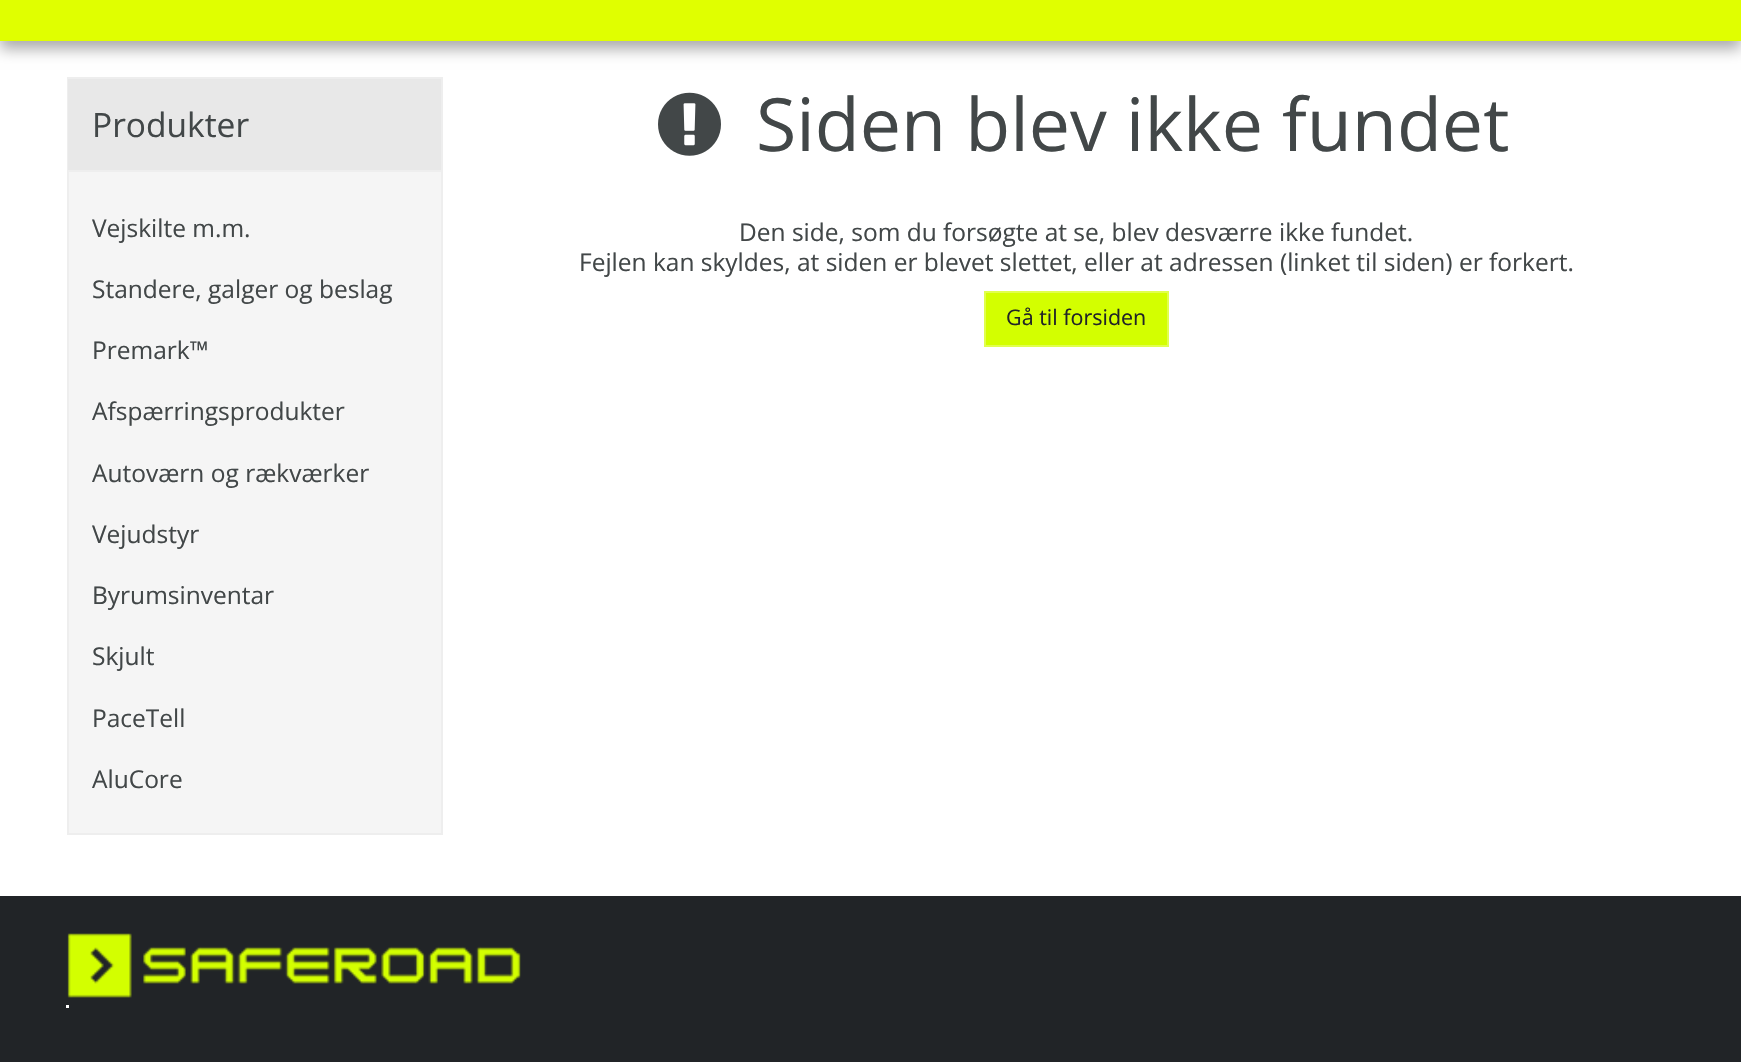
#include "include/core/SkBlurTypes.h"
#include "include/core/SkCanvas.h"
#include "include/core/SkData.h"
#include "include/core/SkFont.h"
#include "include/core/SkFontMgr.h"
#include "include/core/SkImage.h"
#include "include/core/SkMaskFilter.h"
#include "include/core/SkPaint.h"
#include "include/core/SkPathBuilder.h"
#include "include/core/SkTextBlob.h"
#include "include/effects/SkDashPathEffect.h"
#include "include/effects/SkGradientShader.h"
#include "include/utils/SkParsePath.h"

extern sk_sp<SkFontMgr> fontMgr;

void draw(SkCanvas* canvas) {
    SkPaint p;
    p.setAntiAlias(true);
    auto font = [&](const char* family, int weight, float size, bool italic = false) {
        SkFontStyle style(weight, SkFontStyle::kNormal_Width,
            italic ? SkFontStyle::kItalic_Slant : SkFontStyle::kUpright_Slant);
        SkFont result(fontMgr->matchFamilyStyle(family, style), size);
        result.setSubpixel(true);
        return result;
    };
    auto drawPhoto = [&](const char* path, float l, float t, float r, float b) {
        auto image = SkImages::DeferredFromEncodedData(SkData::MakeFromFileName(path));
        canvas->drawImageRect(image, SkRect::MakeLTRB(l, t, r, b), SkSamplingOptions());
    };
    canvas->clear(0xFFFFFFFF);
    p.setColor(0xFFAAAAAA);
    p.setMaskFilter(SkMaskFilter::MakeBlur(kNormal_SkBlurStyle, 7));
    canvas->drawRect(SkRect::MakeLTRB(0, -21, 1741, 49), p);
    p.setMaskFilter(nullptr);
    p.setColor(0xFFE0FF00);
    canvas->drawRect(SkRect::MakeLTRB(0, 0, 1741, 41), p);
    p.setColor(0xFFF5F5F5);
    canvas->drawRect(SkRect::MakeLTRB(69, 172, 441, 833), p);
    p.setStyle(SkPaint::kStroke_Style);
    p.setStrokeWidth(2);
    p.setColor(0xFFEEEEEE);
    canvas->drawRect(SkRect::MakeLTRB(68, 78, 442, 834), p);
    p.setStyle(SkPaint::kFill_Style);
    p.setColor(0xFFE8E8E8);
    canvas->drawRect(SkRect::MakeLTRB(68, 79, 441, 170), p);
    p.setColor(0xFFEEEEEE);
    canvas->drawRect(SkRect::MakeLTRB(68, 170, 441, 172), p);
    auto font1 = font("Open Sans", 400, 33.5f);
    p.setColor(0xFF424748);
    canvas->drawString("Produkter", 92, 137, font1, p);
    auto font2 = font("Open Sans", 400, 24.5f);
    {
        const struct { const char* s; float x, y; } items[] = {
            {"Vejskilte m.m.", 92, 237},
            {"Standere, galger og beslag", 92, 298},
            {"Premark™", 92, 359},
            {"Afspærringsprodukter", 92, 420},
            {"Autoværn og rækværker", 92, 482},
            {"Vejudstyr", 92, 543},
            {"Byrumsinventar", 92, 604},
            {"Skjult", 92, 665},
            {"PaceTell", 92, 727},
            {"AluCore", 92, 788},
        };
        for (auto [s, x, y] : items) {
            canvas->drawString(s, x, y, font2, p);
        }
    }
    drawPhoto("media/1.png", 658, 92, 721, 156);
    auto font3 = font("Open Sans", 400, 73.5f);
    canvas->drawString("Siden blev ikke fundet", 756, 151, font3, p);
    canvas->drawString("Den side, som du forsøgte at se, blev desværre ikke fundet.", 739, 241, font2, p);
    canvas->drawString("Fejlen kan skyldes, at siden er blevet slettet, eller at adressen (linket til siden) er forkert.", 579, 271, font2, p);
    p.setColor(0xFFD3FF00);
    canvas->drawRect(SkRect::MakeLTRB(985, 292, 1168, 346), p);
    p.setStyle(SkPaint::kStroke_Style);
    p.setColor(0xFFE0FF4D);
    canvas->drawRect(SkRect::MakeLTRB(985, 292, 1168, 346), p);
    auto font4 = font("Open Sans", 400, 21.5f);
    p.setStyle(SkPaint::kFill_Style);
    p.setColor(0xFF212427);
    canvas->drawString("Gå til forsiden", 1006, 325, font4, p);
    canvas->drawRect(SkRect::MakeLTRB(0, 896, 1741, 1062), p);
    drawPhoto("media/2.png", 67, 933, 521, 998);
    p.setColor(0xFFFFFFFF);
    canvas->drawRect(SkRect::MakeLTRB(66, 1005, 69, 1008), p);
}
